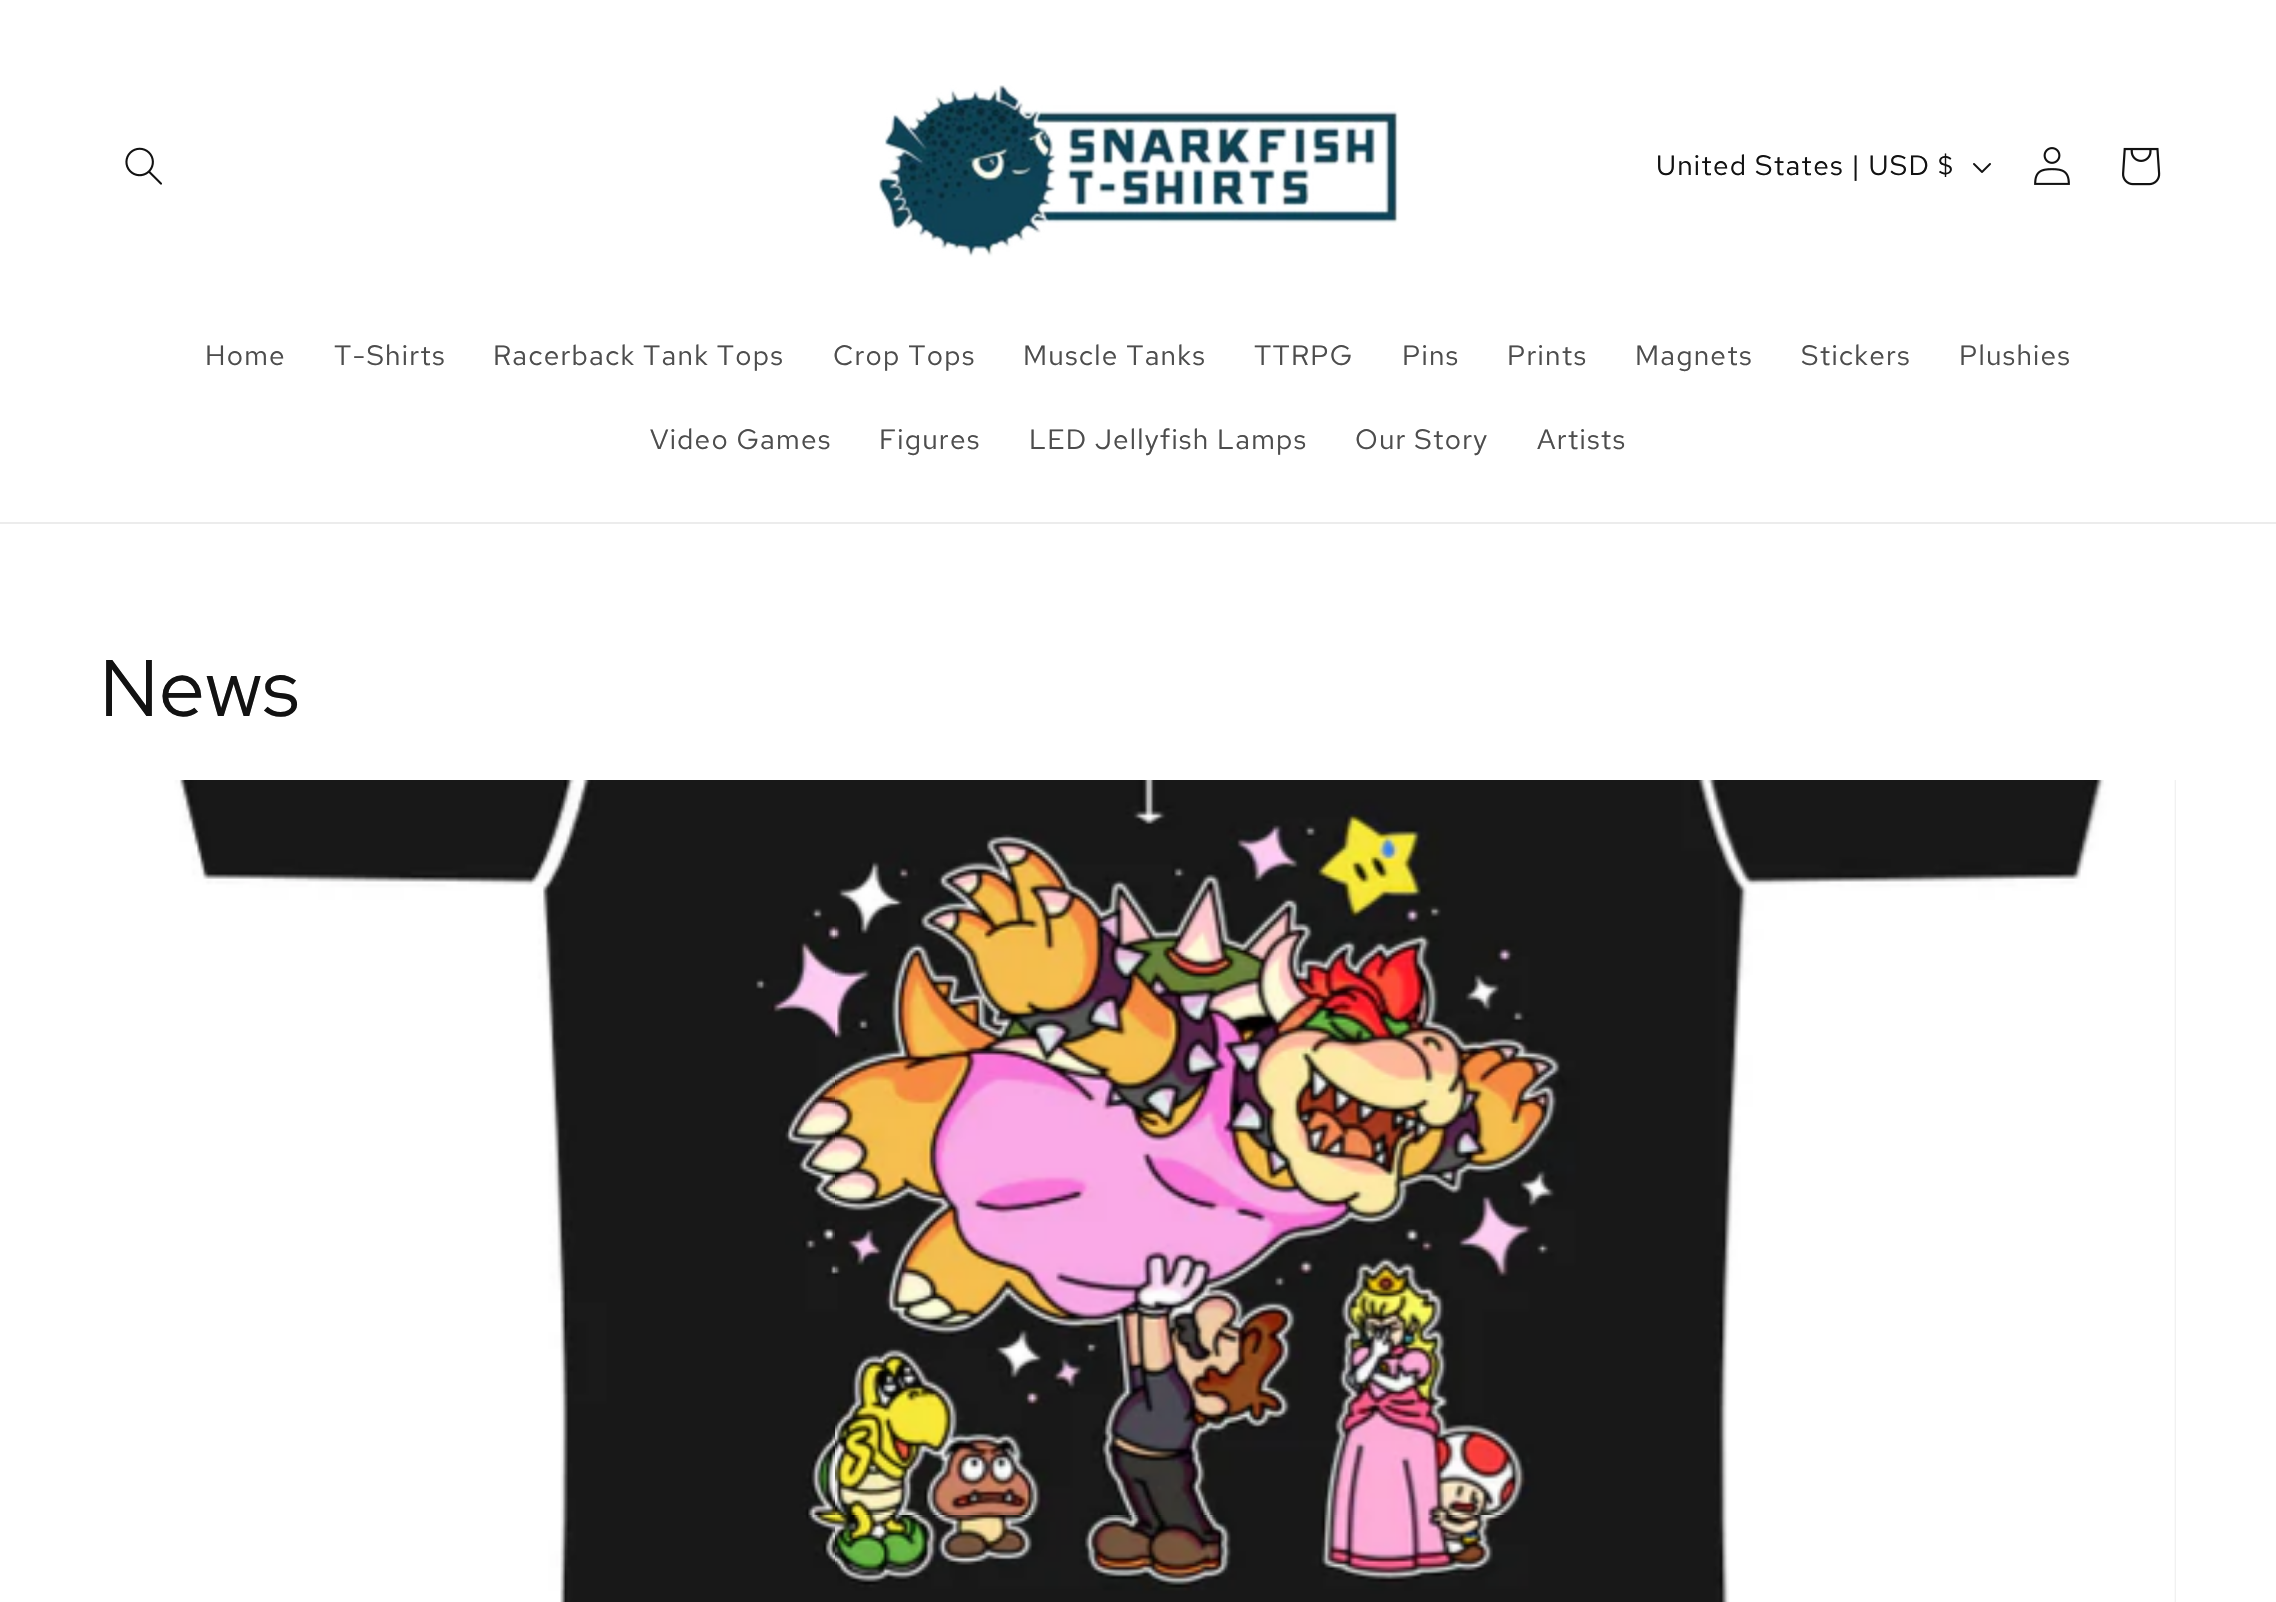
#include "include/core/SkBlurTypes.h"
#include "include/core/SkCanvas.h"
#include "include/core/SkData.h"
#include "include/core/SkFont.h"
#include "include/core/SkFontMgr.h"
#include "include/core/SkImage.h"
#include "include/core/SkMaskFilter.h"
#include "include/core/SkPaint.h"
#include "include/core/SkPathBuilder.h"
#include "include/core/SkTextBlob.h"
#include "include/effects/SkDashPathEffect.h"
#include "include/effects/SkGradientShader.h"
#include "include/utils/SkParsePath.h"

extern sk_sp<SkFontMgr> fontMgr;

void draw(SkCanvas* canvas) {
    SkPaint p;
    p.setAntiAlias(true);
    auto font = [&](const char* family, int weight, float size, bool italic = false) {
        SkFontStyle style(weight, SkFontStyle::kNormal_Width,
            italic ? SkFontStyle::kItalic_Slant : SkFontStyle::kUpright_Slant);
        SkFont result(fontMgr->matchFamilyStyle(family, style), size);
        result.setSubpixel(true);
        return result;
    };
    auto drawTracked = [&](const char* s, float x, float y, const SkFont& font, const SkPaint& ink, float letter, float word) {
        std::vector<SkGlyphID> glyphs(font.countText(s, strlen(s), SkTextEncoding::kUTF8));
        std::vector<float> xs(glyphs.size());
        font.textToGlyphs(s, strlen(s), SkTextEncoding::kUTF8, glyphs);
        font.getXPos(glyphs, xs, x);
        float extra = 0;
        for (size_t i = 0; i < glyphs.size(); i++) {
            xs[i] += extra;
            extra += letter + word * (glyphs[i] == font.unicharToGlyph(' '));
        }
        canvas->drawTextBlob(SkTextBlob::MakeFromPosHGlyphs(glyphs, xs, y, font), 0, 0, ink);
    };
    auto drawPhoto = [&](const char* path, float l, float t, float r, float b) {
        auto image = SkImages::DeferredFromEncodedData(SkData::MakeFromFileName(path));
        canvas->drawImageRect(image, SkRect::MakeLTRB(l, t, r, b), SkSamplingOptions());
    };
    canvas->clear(0xFFFFFFFF);
    p.setColor(0xFFECECEC);
    canvas->drawRect(SkRect::MakeLTRB(0, 522, 2276, 524), p);
    drawPhoto("media/1.png", 125, 147, 162, 185);
    drawPhoto("media/2.png", 878, 85, 1399, 257);
    auto font1 = font("Red Hat Text", 400, 28);
    p.setColor(0xFF121212);
    drawTracked("United States | USD $", 1656, 175, font1, p, 1.2f, 0);
    drawPhoto("media/3.png", 1973, 163, 1991, 173);
    drawPhoto("media/4.png", 2034, 147, 2070, 185);
    drawPhoto("media/5.png", 2122, 147, 2161, 186);
    p.setColor(0xFF4D4D4D);
    {
        const struct { const char* s; float x, y; } items[] = {
            {"Home", 205, 365},
            {"T-Shirts", 334, 365},
            {"Racerback Tank Tops", 493, 365},
            {"Crop Tops", 833, 365},
            {"Muscle Tanks", 1023, 365},
            {"TTRPG", 1254, 365},
            {"Pins", 1402, 365},
            {"Prints", 1507, 365},
            {"Magnets", 1635, 365},
            {"Stickers", 1801, 365},
            {"Plushies", 1959, 365},
            {"Video Games", 650, 449},
            {"Figures", 879, 449},
            {"LED Jellyfish Lamps", 1029, 449},
            {"Our Story", 1355, 449},
            {"Artists", 1537, 449},
        };
        for (auto [s, x, y] : items) {
            drawTracked(s, x, y, font1, p, 1.2f, 0);
        }
    }
    auto font2 = font("Red Hat Display", 400, 80);
    p.setColor(0xFF121212);
    drawTracked("News", 100, 716, font2, p, 1.2f, 0);
    p.setColor(0xFFDFDFDF);
    canvas->drawRect(SkRect::MakeLTRB(2174, 780, 2176, 1602), p);
    drawPhoto("media/6.png", 100, 780, 2176, 1602);
}
